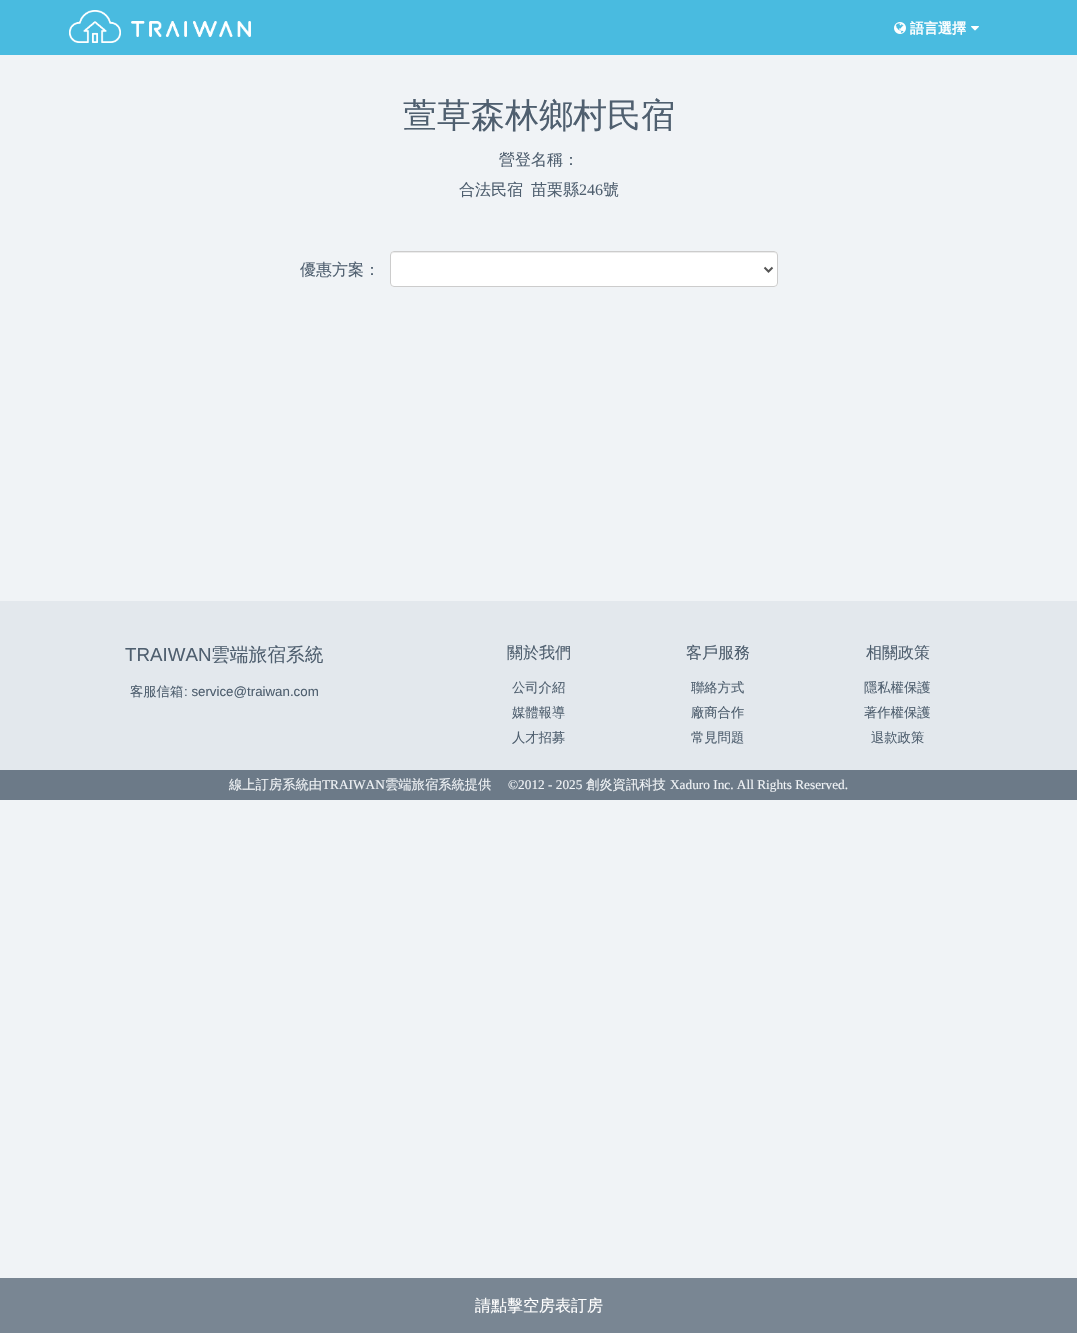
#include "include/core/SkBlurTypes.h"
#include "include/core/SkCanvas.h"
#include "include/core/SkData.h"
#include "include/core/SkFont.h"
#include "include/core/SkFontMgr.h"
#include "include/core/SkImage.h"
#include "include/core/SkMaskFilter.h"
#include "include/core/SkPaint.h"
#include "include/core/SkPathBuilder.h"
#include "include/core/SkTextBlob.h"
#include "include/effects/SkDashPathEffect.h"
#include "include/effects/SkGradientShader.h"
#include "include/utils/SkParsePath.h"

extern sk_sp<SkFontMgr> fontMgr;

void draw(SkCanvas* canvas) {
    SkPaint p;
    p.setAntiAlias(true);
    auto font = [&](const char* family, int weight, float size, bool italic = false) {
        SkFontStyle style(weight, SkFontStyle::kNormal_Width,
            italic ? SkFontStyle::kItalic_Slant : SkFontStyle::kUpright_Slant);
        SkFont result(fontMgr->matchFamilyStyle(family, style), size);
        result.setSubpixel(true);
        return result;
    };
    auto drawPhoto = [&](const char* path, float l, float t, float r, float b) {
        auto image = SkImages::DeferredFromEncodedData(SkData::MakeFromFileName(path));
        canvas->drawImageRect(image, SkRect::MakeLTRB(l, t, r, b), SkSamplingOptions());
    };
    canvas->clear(0xFFF0F3F6);
    p.setColor(0xFF49BBE0);
    canvas->drawRect(SkRect::MakeLTRB(0, 0, 1077, 55), p);
    drawPhoto("media/1.png", 69, 10, 121, 43);
    drawPhoto("media/2.png", 131, 21, 251, 37);
    drawPhoto("media/3.png", 894, 22, 906, 34);
    auto font1 = font("WenQuanYi Zen Hei", 700, 14);
    p.setColor(0xFFFFFFFF);
    canvas->drawString("語言選擇", 910, 33, font1, p);
    drawPhoto("media/4.png", 971, 26, 979, 31);
    auto font2 = font("WenQuanYi Zen Hei", 500, 34);
    p.setColor(0xFF4F5F6F);
    canvas->drawString("萱草森林鄉村民宿", 403, 127, font2, p);
    auto font3 = font("WenQuanYi Zen Hei", 500, 16);
    {
        const struct { const char* s; float x, y; } items[] = {
            {"營登名稱：", 499, 165},
            {"合法民宿", 459, 195},
            {"苗栗縣", 531, 195},
        };
        for (auto [s, x, y] : items) {
            canvas->drawString(s, x, y, font3, p);
        }
    }
    auto font4 = font("Liberation Serif", 400, 16);
    canvas->drawString("246", 579, 195, font4, p);
    canvas->drawString("號", 603, 195, font3, p);
    canvas->drawString("優惠方案：", 300, 275, font3, p);
    p.setColor(0xFFFFFFFF);
    canvas->drawRoundRect(SkRect::MakeLTRB(390, 251, 778, 287), 4, 4, p);
    p.setColor(0xFFECECEC);
    canvas->drawPath(SkPathBuilder().moveTo(394, 253).lineTo(774, 253).cubicTo(776, 253, 777, 254, 777, 256).cubicTo(777, 254, 776, 252, 774, 252).lineTo(394, 252).lineTo(392, 253).lineTo(391, 256).cubicTo(391, 254, 392, 253, 394, 253).close().detach(), p);
    p.setStyle(SkPaint::kStroke_Style);
    p.setStrokeWidth(1);
    p.setColor(0xFFCCCCCC);
    canvas->drawRoundRect(SkRect::MakeLTRB(390.5f, 251.5f, 777.5f, 286.5f), 3.5f, 3.5f, p);
    p.setStrokeWidth(2);
    p.setColor(0xFF555555);
    canvas->drawPath(SkPathBuilder().moveTo(764.5f, 267.5f).lineTo(768.5f, 271.5f).lineTo(772.5f, 267.5f).detach(), p);
    p.setStyle(SkPaint::kFill_Style);
    p.setColor(0xFFE3E8ED);
    canvas->drawRect(SkRect::MakeLTRB(0, 601, 1077, 770), p);
    auto font5 = font("Liberation Sans", 400, 18.75f);
    p.setColor(0xFF4F5F6F);
    canvas->drawString("TRAIWAN", 125, 661, font5, p);
    auto font6 = font("WenQuanYi Zen Hei", 500, 18.75f);
    canvas->drawString("雲端旅宿系統", 211, 661, font6, p);
    auto font7 = font("WenQuanYi Zen Hei", 500, 13.3f);
    canvas->drawString("客服信箱", 130, 696, font7, p);
    auto font8 = font("Liberation Sans", 400, 13.3f);
    canvas->drawString(": service@traiwan.com", 184, 696, font8, p);
    canvas->drawString("關於我們", 507, 658, font3, p);
    {
        const struct { const char* s; float x, y; } items[] = {
            {"公司介紹", 512, 692},
            {"媒體報導", 512, 717},
            {"人才招募", 512, 742},
        };
        for (auto [s, x, y] : items) {
            canvas->drawString(s, x, y, font7, p);
        }
    }
    canvas->drawString("客戶服務", 686, 658, font3, p);
    {
        const struct { const char* s; float x, y; } items[] = {
            {"聯絡方式", 691, 692},
            {"廠商合作", 691, 717},
            {"常見問題", 691, 742},
        };
        for (auto [s, x, y] : items) {
            canvas->drawString(s, x, y, font7, p);
        }
    }
    canvas->drawString("相關政策", 866, 658, font3, p);
    {
        const struct { const char* s; float x, y; } items[] = {
            {"隱私權保護", 864, 692},
            {"著作權保護", 864, 717},
            {"退款政策", 871, 742},
        };
        for (auto [s, x, y] : items) {
            canvas->drawString(s, x, y, font7, p);
        }
    }
    p.setColor(0xFF6C7A88);
    canvas->drawRect(SkRect::MakeLTRB(0, 770, 1077, 800), p);
    p.setColor(0xFFF0F3F6);
    canvas->drawString("線上訂房系統由", 229, 789, font7, p);
    auto font9 = font("Liberation Serif", 400, 13.3f);
    canvas->drawString("TRAIWAN", 322, 789, font9, p);
    canvas->drawString("雲端旅宿系統提供", 385, 789, font7, p);
    canvas->drawString("©2012 - 2025", 508, 789, font9, p);
    canvas->drawString("創炎資訊科技", 586, 789, font7, p);
    canvas->drawString("Xaduro Inc. All Rights Reserved.", 670, 789, font9, p);
    p.setColor(0xFF798693);
    canvas->drawRect(SkRect::MakeLTRB(0, 1278, 1077, 1333), p);
    p.setColor(0xFFFFFFFF);
    canvas->drawString("請點擊空房表訂房", 475, 1311, font3, p);
}
